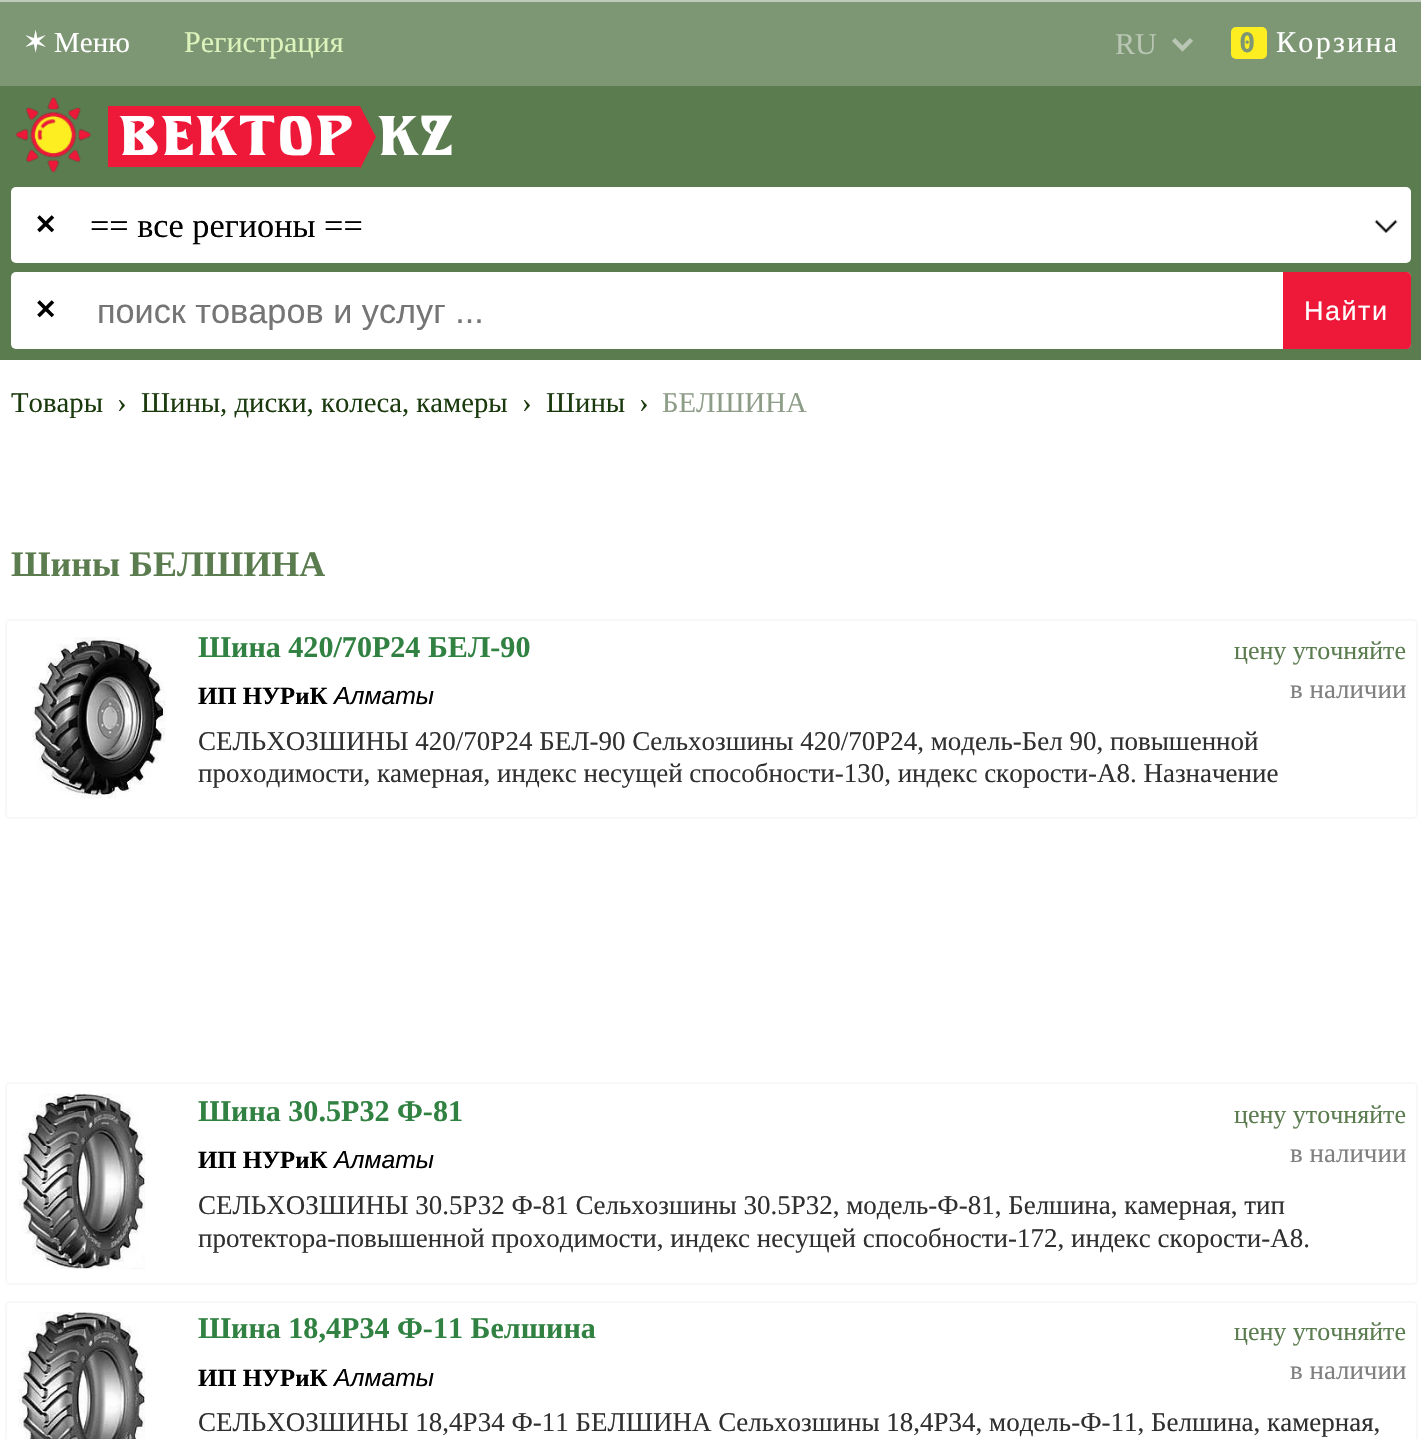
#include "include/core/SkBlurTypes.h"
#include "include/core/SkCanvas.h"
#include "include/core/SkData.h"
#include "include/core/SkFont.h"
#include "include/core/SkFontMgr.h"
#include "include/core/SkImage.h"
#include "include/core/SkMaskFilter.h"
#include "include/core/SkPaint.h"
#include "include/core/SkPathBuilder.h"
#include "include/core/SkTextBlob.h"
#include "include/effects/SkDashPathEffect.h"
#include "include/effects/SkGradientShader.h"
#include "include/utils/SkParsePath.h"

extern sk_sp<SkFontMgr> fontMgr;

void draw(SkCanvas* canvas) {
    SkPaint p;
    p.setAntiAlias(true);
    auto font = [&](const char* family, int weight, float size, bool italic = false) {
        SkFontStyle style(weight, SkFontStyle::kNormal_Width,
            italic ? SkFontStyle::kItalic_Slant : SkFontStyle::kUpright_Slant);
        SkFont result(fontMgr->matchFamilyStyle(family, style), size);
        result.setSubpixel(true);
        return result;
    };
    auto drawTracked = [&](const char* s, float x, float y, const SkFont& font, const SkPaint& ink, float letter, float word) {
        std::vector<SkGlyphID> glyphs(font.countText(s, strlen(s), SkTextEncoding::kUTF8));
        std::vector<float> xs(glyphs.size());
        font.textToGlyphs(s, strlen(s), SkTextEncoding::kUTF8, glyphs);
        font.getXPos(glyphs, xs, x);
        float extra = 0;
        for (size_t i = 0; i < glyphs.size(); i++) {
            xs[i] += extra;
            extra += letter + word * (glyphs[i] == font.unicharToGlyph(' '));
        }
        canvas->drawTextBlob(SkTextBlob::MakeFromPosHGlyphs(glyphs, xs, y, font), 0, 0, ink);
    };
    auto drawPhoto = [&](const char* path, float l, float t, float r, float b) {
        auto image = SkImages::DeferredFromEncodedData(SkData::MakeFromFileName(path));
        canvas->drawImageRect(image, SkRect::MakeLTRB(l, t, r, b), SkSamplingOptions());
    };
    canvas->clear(0xFFBECBBA);
    p.setColor(0xFF7D9774);
    canvas->drawRect(SkRect::MakeLTRB(0, 2, 1421, 86), p);
    auto font1 = font("DejaVu Sans", 400, 30.1f);
    p.setColor(0xFFFFFFFF);
    canvas->drawString("✶", 23, 52, font1, p);
    auto font2 = font("Liberation Serif", 400, 29);
    canvas->drawString("Меню", 54, 52, font2, p);
    auto font3 = font("Liberation Serif", 400, 30.1f);
    p.setColor(0xFFDDF3BC);
    canvas->drawString("Регистрация", 184, 52, font3, p);
    p.setStyle(SkPaint::kStroke_Style);
    p.setStrokeWidth(4.5f);
    p.setColor(0xFFB8C6B3);
    canvas->drawPath(SkPathBuilder().moveTo(1173.5f, 39.5f).lineTo(1182.5f, 48.5f).lineTo(1191.5f, 39.5f).detach(), p);
    p.setStyle(SkPaint::kFill_Style);
    canvas->drawString("RU", 1115, 54, font3, p);
    p.setColor(0xFFFDEE21);
    canvas->drawRoundRect(SkRect::MakeLTRB(1231, 27, 1267, 59), 5, 5, p);
    auto font4 = font("DejaVu Sans Mono", 700, 27);
    p.setColor(0xFF7D9774);
    drawTracked("0", 1239, 52, font4, p, 2.25f, 0);
    p.setColor(0xFFFFFFFF);
    drawTracked("Корзина", 1276, 52, font3, p, 2.25f, 0);
    p.setColor(0xFF5B7C4F);
    canvas->drawRect(SkRect::MakeLTRB(0, 86, 1421, 360), p);
    drawPhoto("media/1.png", 15, 97, 92, 173);
    p.setColor(0xFFEE1839);
    canvas->drawRect(SkRect::MakeLTRB(108, 106, 360, 167), p);
    auto font5 = font("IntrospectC", 400, 58.5f);
    p.setColor(0xFFFFFFFF);
    drawTracked("ВЕКТОР", 119, 155, font5, p, 2.25f, 0);
    p.setColor(0xFFEE1839);
    canvas->drawPath(SkPathBuilder().moveTo(360, 169).lineTo(360, 106).lineTo(376, 137).close().detach(), p);
    p.setColor(0xFFFFFFFF);
    drawTracked("KZ", 378, 155, font5, p, 2.25f, 0);
    canvas->drawRoundRect(SkRect::MakeLTRB(11, 187, 1411, 263), 5, 5, p);
    auto font6 = font("DejaVu Sans", 700, 27);
    p.setColor(0xFF000000);
    canvas->drawString("✕", 34, 234, font6, p);
    drawPhoto("media/2.png", 1374, 219, 1398, 233);
    auto font7 = font("Liberation Serif", 400, 34.25f);
    canvas->drawString("== все регионы ==", 90, 237, font7, p);
    p.setColor(0xFFFFFFFF);
    canvas->drawRoundRect(SkRect::MakeLTRB(11, 272, 1411, 349), 5, 5, p);
    p.setColor(0xFF000000);
    canvas->drawString("✕", 34, 319, font6, p);
    auto font8 = font("Liberation Sans", 400, 34.25f);
    p.setColor(0xFF757575);
    canvas->drawString("поиск товаров и услуг ...", 97, 323, font8, p);
    p.setColor(0xFFEE1839);
    canvas->drawPath(SkPathBuilder().moveTo(1283, 272).lineTo(1406, 272).cubicTo(1409, 272, 1411, 274, 1411, 277).lineTo(1411, 344).cubicTo(1411, 347, 1409, 349, 1406, 349).lineTo(1283, 349).close().detach(), p);
    auto font9 = font("Liberation Sans", 400, 27);
    p.setColor(0xFFFFFFFF);
    drawTracked("Найти", 1304, 320, font9, p, 1.5f, 0);
    canvas->drawRect(SkRect::MakeLTRB(0, 360, 1421, 1439), p);
    auto font10 = font("Liberation Serif", 400, 28.75f);
    p.setColor(0xFF1A3A0E);
    {
        const struct { const char* s; float x, y; } items[] = {
            {"Товары", 11, 412},
            {"›", 117, 412},
            {"Шины, диски, колеса, камеры", 141, 412},
            {"›", 522, 412},
            {"Шины", 546, 412},
            {"›", 639, 412},
        };
        for (auto [s, x, y] : items) {
            canvas->drawString(s, x, y, font10, p);
        }
    }
    p.setColor(0xFF8D9D87);
    canvas->drawString("БЕЛШИНА", 662, 412, font10, p);
    auto font11 = font("Liberation Serif", 700, 36);
    p.setColor(0xFF5B7C4F);
    canvas->drawString("Шины БЕЛШИНА", 11, 576, font11, p);
    p.setStyle(SkPaint::kStroke_Style);
    p.setStrokeWidth(2);
    p.setColor(0xFFF8F8F8);
    canvas->drawRoundRect(SkRect::MakeLTRB(6, 620, 1417, 818), 4, 4, p);
    drawPhoto("media/3.png", 32, 637, 166, 799);
    auto font12 = font("Liberation Serif", 700, 30.1f);
    p.setStyle(SkPaint::kFill_Style);
    p.setColor(0xFF318242);
    canvas->drawString("Шина 420/70Р24 БЕЛ-90", 198, 657, font12, p);
    auto font13 = font("Liberation Serif", 400, 26);
    p.setColor(0xFF5B7C4F);
    canvas->drawString("цену уточняйте", 1234, 659, font13, p);
    auto font14 = font("Liberation Serif", 400, 27);
    p.setColor(0xFF808080);
    canvas->drawString("в наличии", 1290, 698, font14, p);
    auto font15 = font("Liberation Serif", 700, 24.75f);
    p.setColor(0xFF000000);
    canvas->drawString("ИП НУРиК", 198, 704, font15, p);
    auto font16 = font("Liberation Sans", 400, 24.75f, true);
    canvas->drawString("Алматы", 334, 704, font16, p);
    p.setColor(0xFF303030);
    canvas->drawString("СЕЛЬХОЗШИНЫ 420/70Р24 БЕЛ-90 Сельхозшины 420/70Р24, модель-Бел 90, повышенной", 198, 750, font14, p);
    canvas->drawString("проходимости, камерная, индекс несущей способности-130, индекс скорости-А8. Назначение", 198, 782, font14, p);
    p.setStyle(SkPaint::kStroke_Style);
    p.setColor(0xFFF8F8F8);
    canvas->drawRoundRect(SkRect::MakeLTRB(6, 1083, 1417, 1284), 4, 4, p);
    drawPhoto("media/4.png", 18, 1093, 145, 1269);
    p.setStyle(SkPaint::kFill_Style);
    p.setColor(0xFF318242);
    canvas->drawString("Шина 30.5Р32 Ф-81", 198, 1121, font12, p);
    p.setColor(0xFF5B7C4F);
    canvas->drawString("цену уточняйте", 1234, 1123, font13, p);
    p.setColor(0xFF808080);
    canvas->drawString("в наличии", 1290, 1162, font14, p);
    p.setColor(0xFF000000);
    canvas->drawString("ИП НУРиК", 198, 1168, font15, p);
    canvas->drawString("Алматы", 334, 1168, font16, p);
    p.setColor(0xFF303030);
    canvas->drawString("СЕЛЬХОЗШИНЫ 30.5Р32 Ф-81 Сельхозшины 30.5Р32, модель-Ф-81, Белшина, камерная, тип", 198, 1214, font14, p);
    canvas->drawString("протектора-повышенной проходимости, индекс несущей способности-172, индекс скорости-А8.", 198, 1247, font14, p);
    p.setStyle(SkPaint::kStroke_Style);
    p.setColor(0xFFF8F8F8);
    canvas->drawRoundRect(SkRect::MakeLTRB(6, 1302, 1417, 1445), 4, 4, p);
    drawPhoto("media/5.png", 18, 1312, 145, 1439);
    p.setStyle(SkPaint::kFill_Style);
    p.setColor(0xFF318242);
    canvas->drawString("Шина 18,4Р34 Ф-11 Белшина", 198, 1338, font12, p);
    p.setColor(0xFF5B7C4F);
    canvas->drawString("цену уточняйте", 1234, 1340, font13, p);
    p.setColor(0xFF808080);
    canvas->drawString("в наличии", 1290, 1379, font14, p);
    p.setColor(0xFF000000);
    canvas->drawString("ИП НУРиК", 198, 1386, font15, p);
    canvas->drawString("Алматы", 334, 1386, font16, p);
    p.setColor(0xFF303030);
    canvas->drawString("СЕЛЬХОЗШИНЫ 18,4Р34 Ф-11 БЕЛШИНА Сельхозшины 18,4Р34, модель-Ф-11, Белшина, камерная,", 198, 1431, font14, p);
}
